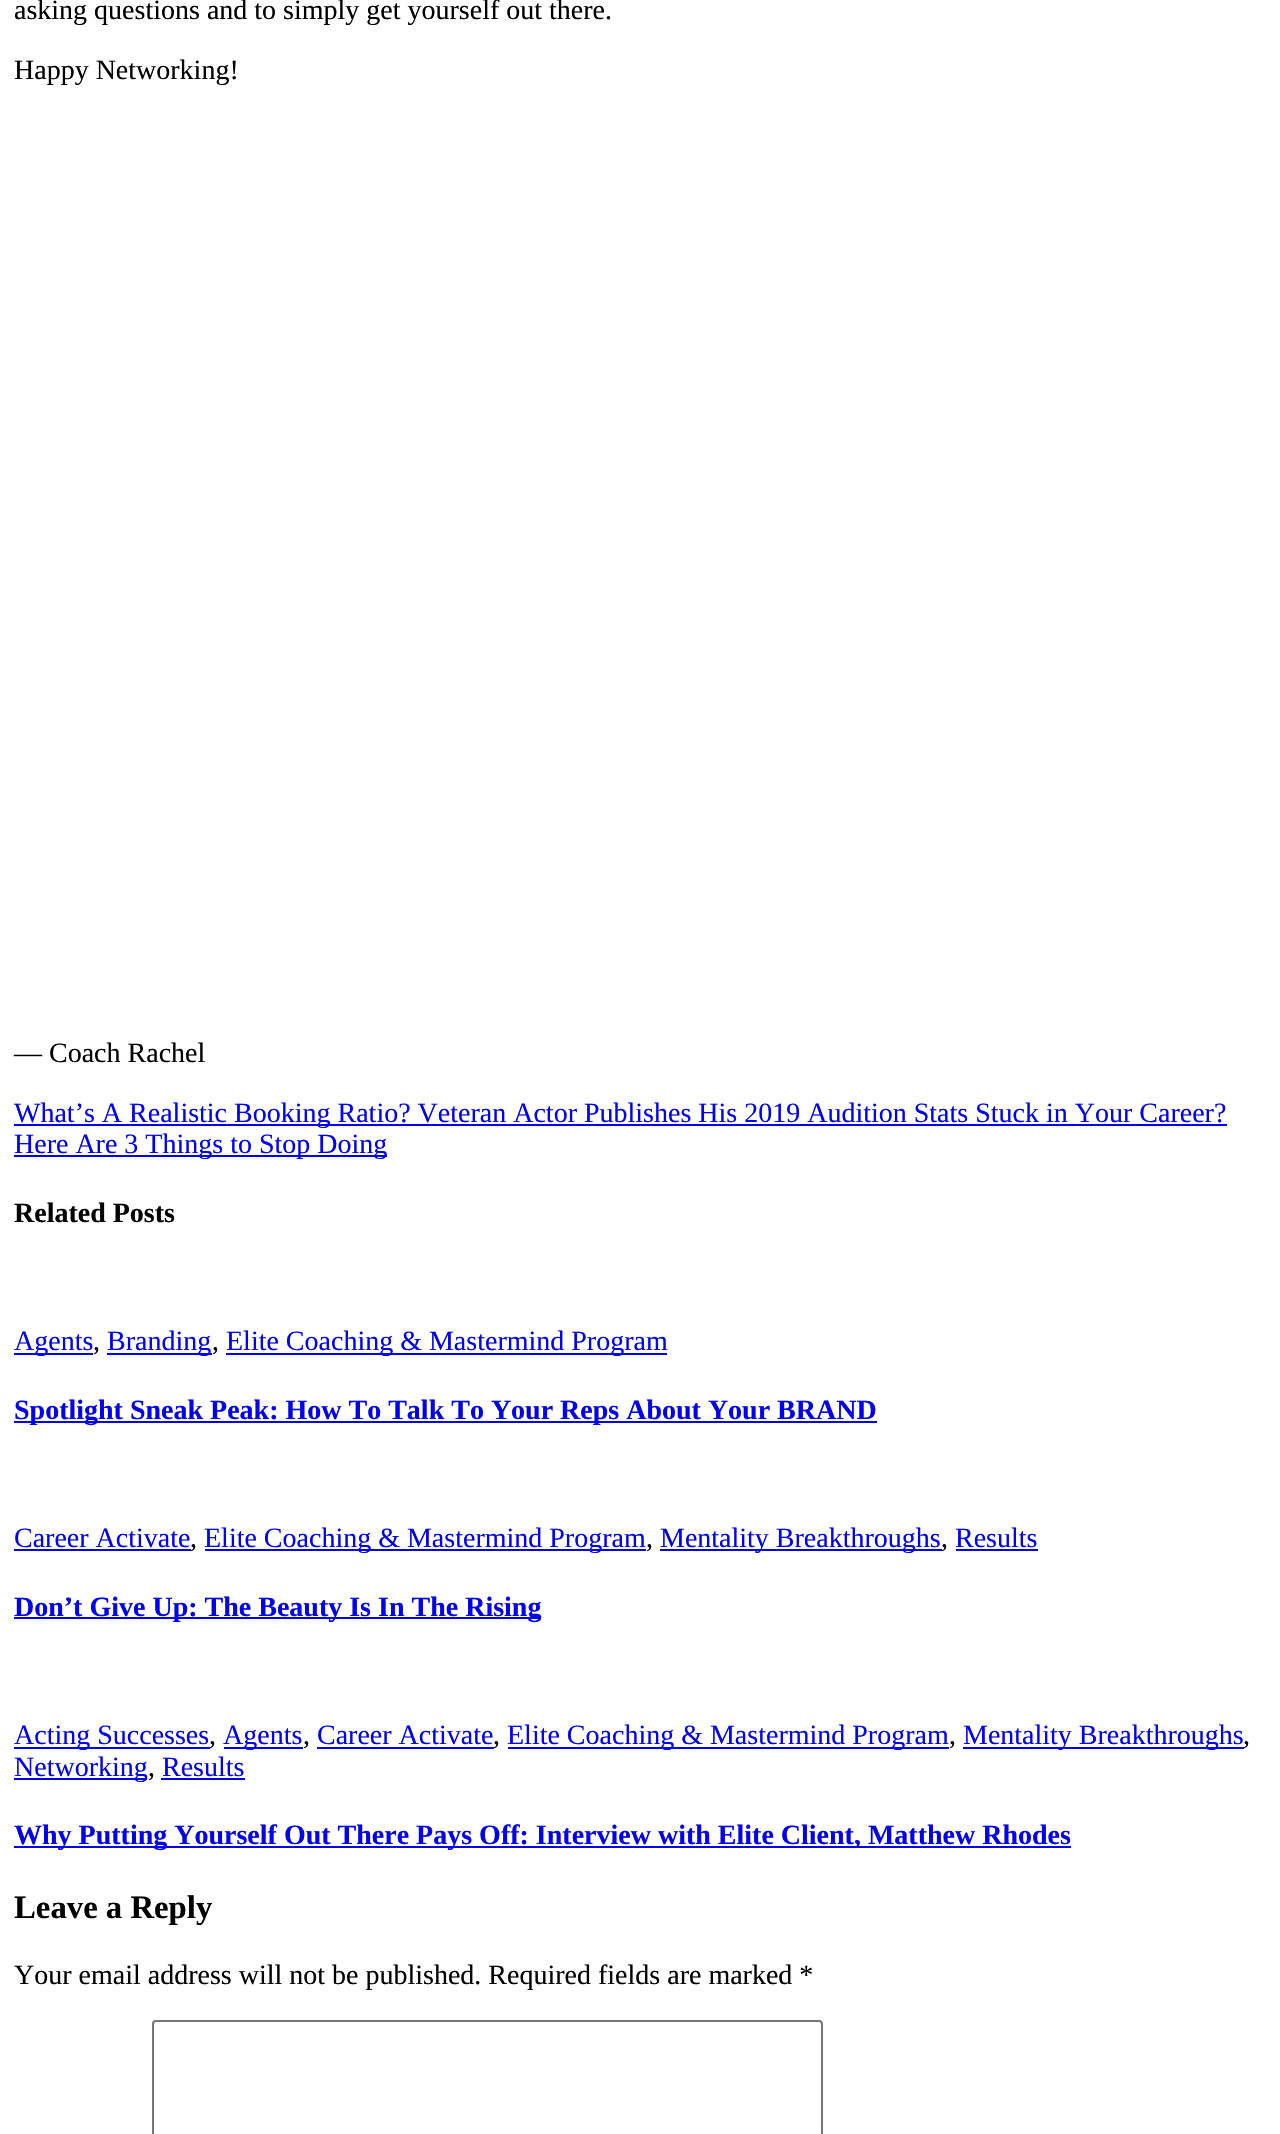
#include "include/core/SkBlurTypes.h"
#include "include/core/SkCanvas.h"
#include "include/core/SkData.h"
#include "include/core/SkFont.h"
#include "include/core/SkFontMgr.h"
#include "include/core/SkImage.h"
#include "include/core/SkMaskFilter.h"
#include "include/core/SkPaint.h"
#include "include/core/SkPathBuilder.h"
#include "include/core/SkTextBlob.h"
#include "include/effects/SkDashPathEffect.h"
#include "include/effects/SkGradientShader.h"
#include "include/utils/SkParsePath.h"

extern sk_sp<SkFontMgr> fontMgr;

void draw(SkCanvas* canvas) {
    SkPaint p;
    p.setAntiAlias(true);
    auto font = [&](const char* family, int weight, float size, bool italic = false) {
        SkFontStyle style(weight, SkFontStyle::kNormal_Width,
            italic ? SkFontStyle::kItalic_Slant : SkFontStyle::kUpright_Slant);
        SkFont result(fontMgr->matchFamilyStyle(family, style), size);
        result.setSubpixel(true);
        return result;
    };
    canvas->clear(0xFFFFFFFF);
    auto font1 = font("Liberation Serif", 400, 28);
    p.setColor(0xFF000000);
    {
        const struct { const char* s; float x, y; } items[] = {
            {"asking questions and to simply get yourself out there.", 14, 19},
            {"Happy Networking!", 14, 79},
            {"— Coach Rachel", 14, 1062},
        };
        for (auto [s, x, y] : items) {
            canvas->drawString(s, x, y, font1, p);
        }
    }
    p.setColor(0xFF0000EE);
    canvas->drawRect(SkRect::MakeLTRB(14, 1124, 1227, 1126), p);
    canvas->drawString("What’s A Realistic Booking Ratio? Veteran Actor Publishes His 2019 Audition Stats Stuck in Your Career?", 14, 1122, font1, p);
    canvas->drawRect(SkRect::MakeLTRB(14, 1155, 387, 1157), p);
    canvas->drawString("Here Are 3 Things to Stop Doing", 14, 1153, font1, p);
    auto font2 = font("Liberation Serif", 700, 28);
    p.setColor(0xFF000000);
    canvas->drawString("Related Posts", 14, 1222, font2, p);
    p.setColor(0xFF0000EE);
    canvas->drawRect(SkRect::MakeLTRB(14, 1353, 93, 1355), p);
    canvas->drawString("Agents", 14, 1350, font1, p);
    p.setColor(0xFF000000);
    canvas->drawString(",", 93, 1350, font1, p);
    p.setColor(0xFF0000EE);
    canvas->drawRect(SkRect::MakeLTRB(107, 1353, 212, 1355), p);
    canvas->drawString("Branding", 107, 1350, font1, p);
    p.setColor(0xFF000000);
    canvas->drawString(",", 212, 1350, font1, p);
    p.setColor(0xFF0000EE);
    canvas->drawRect(SkRect::MakeLTRB(226, 1353, 667, 1355), p);
    canvas->drawString("Elite Coaching & Mastermind Program", 226, 1350, font1, p);
    canvas->drawRect(SkRect::MakeLTRB(14, 1421, 877, 1423), p);
    canvas->drawString("Spotlight Sneak Peak: How To Talk To Your Reps About Your BRAND", 14, 1419, font2, p);
    canvas->drawString("Career Activate", 14, 1547, font1, p);
    p.setColor(0xFF000000);
    canvas->drawString(",", 190, 1547, font1, p);
    p.setColor(0xFF0000EE);
    canvas->drawRect(SkRect::MakeLTRB(14, 1549, 191, 1551), p);
    canvas->drawRect(SkRect::MakeLTRB(205, 1549, 646, 1551), p);
    canvas->drawString("Elite Coaching & Mastermind Program", 204, 1547, font1, p);
    p.setColor(0xFF000000);
    canvas->drawString(",", 646, 1547, font1, p);
    p.setColor(0xFF0000EE);
    canvas->drawRect(SkRect::MakeLTRB(660, 1549, 942, 1551), p);
    canvas->drawString("Mentality Breakthroughs", 660, 1547, font1, p);
    p.setColor(0xFF000000);
    canvas->drawString(",", 941, 1547, font1, p);
    p.setColor(0xFF0000EE);
    canvas->drawRect(SkRect::MakeLTRB(956, 1549, 1038, 1551), p);
    canvas->drawString("Results", 955, 1547, font1, p);
    canvas->drawRect(SkRect::MakeLTRB(14, 1617, 541, 1619), p);
    canvas->drawString("Don’t Give Up: The Beauty Is In The Rising", 14, 1616, font2, p);
    canvas->drawRect(SkRect::MakeLTRB(14, 1747, 210, 1749), p);
    canvas->drawString("Acting Successes", 14, 1744, font1, p);
    p.setColor(0xFF000000);
    canvas->drawString(",", 209, 1744, font1, p);
    p.setColor(0xFF0000EE);
    canvas->drawRect(SkRect::MakeLTRB(224, 1747, 303, 1749), p);
    canvas->drawString("Agents", 223, 1744, font1, p);
    p.setColor(0xFF000000);
    canvas->drawString(",", 303, 1744, font1, p);
    p.setColor(0xFF0000EE);
    canvas->drawString("Career Activate", 317, 1744, font1, p);
    p.setColor(0xFF000000);
    canvas->drawString(",", 493, 1744, font1, p);
    p.setColor(0xFF0000EE);
    canvas->drawRect(SkRect::MakeLTRB(317, 1747, 494, 1749), p);
    canvas->drawRect(SkRect::MakeLTRB(508, 1747, 949, 1749), p);
    canvas->drawString("Elite Coaching & Mastermind Program", 507, 1744, font1, p);
    p.setColor(0xFF000000);
    canvas->drawString(",", 949, 1744, font1, p);
    p.setColor(0xFF0000EE);
    canvas->drawRect(SkRect::MakeLTRB(963, 1747, 1244, 1749), p);
    canvas->drawString("Mentality Breakthroughs", 963, 1744, font1, p);
    p.setColor(0xFF000000);
    canvas->drawString(",", 1243, 1744, font1, p);
    p.setColor(0xFF0000EE);
    canvas->drawRect(SkRect::MakeLTRB(14, 1778, 147, 1780), p);
    canvas->drawString("Networking", 14, 1776, font1, p);
    p.setColor(0xFF000000);
    canvas->drawString(",", 148, 1776, font1, p);
    p.setColor(0xFF0000EE);
    canvas->drawRect(SkRect::MakeLTRB(161, 1778, 245, 1780), p);
    canvas->drawString("Results", 162, 1776, font1, p);
    canvas->drawRect(SkRect::MakeLTRB(14, 1846, 1071, 1848), p);
    canvas->drawString("Why Putting Yourself Out There Pays Off: Interview with Elite Client, Matthew Rhodes", 14, 1844, font2, p);
    auto font3 = font("Liberation Serif", 700, 32.75f);
    p.setColor(0xFF000000);
    canvas->drawString("Leave a Reply", 14, 1918, font3, p);
    canvas->drawString("Your email address will not be published. Required fields are marked *", 14, 1984, font1, p);
    p.setStyle(SkPaint::kStroke_Style);
    p.setStrokeWidth(2);
    p.setColor(0xFF767676);
    canvas->drawRoundRect(SkRect::MakeLTRB(153, 2021, 822, 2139), 3, 3, p);
}
